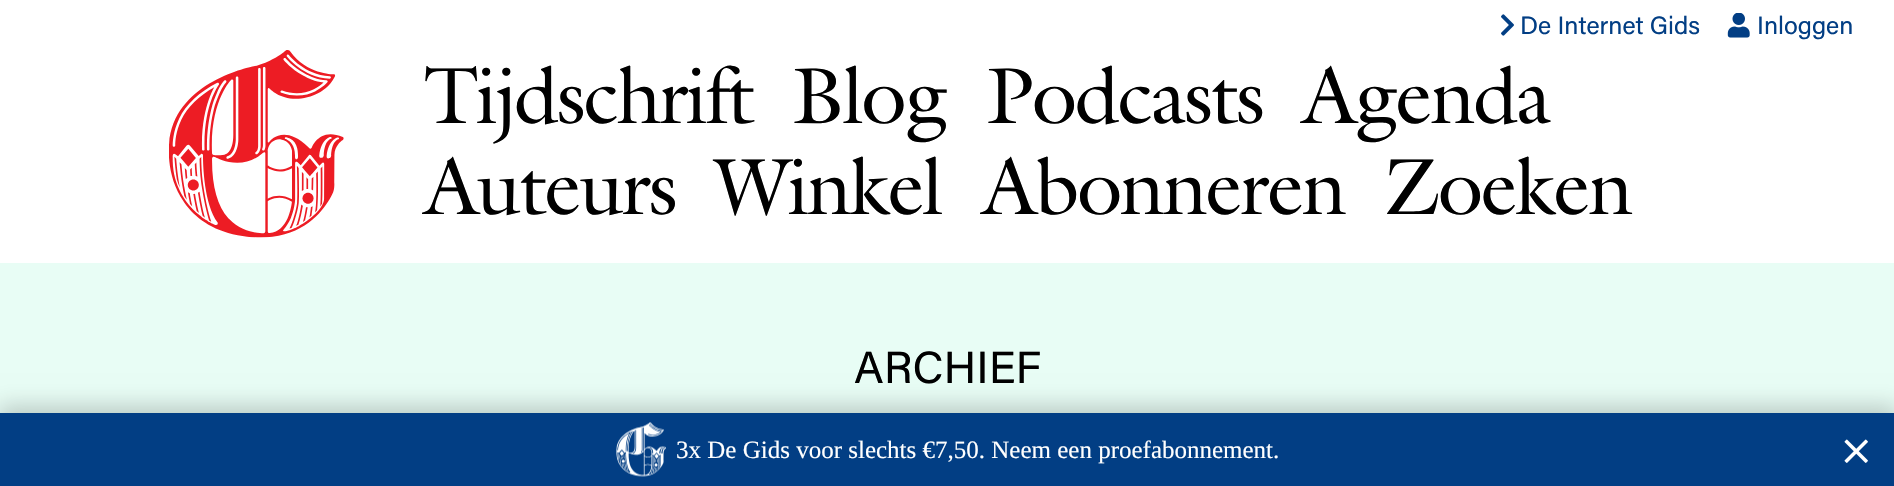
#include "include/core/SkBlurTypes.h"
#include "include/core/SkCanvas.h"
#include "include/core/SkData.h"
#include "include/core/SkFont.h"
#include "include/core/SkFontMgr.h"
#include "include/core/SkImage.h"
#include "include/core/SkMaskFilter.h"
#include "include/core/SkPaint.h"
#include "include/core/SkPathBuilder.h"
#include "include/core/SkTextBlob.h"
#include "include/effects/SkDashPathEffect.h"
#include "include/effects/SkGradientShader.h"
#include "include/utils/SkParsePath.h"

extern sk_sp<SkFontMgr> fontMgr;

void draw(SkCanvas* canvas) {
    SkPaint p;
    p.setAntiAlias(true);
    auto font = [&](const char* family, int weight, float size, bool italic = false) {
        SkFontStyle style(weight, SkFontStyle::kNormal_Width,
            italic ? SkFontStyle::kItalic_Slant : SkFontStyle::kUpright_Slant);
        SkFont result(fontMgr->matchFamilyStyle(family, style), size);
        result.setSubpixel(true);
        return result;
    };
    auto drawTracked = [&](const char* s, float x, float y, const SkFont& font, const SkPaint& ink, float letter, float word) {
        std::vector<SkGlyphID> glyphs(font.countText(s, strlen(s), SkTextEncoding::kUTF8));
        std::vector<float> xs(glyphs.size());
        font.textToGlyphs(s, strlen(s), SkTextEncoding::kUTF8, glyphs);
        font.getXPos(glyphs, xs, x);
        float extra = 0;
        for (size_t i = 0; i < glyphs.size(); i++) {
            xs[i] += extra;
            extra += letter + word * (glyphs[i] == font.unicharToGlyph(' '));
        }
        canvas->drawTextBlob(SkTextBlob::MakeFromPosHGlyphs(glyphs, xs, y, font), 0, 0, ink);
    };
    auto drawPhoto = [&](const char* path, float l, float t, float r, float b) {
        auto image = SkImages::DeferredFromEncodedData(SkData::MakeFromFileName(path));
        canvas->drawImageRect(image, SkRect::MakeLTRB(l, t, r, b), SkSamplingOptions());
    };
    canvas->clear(0xFFFFFFFF);
    drawPhoto("media/1.png", 1501, 14, 1514, 36);
    auto font1 = font("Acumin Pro", 400, 25);
    p.setColor(0xFF023E84);
    canvas->drawString("De Internet Gids", 1520, 34, font1, p);
    drawPhoto("media/2.png", 1727, 13, 1750, 38);
    canvas->drawString("Inloggen", 1757, 34, font1, p);
    drawPhoto("media/3.png", 169, 50, 344, 238);
    auto font2 = font("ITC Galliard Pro", 400, 80);
    p.setColor(0xFF000000);
    {
        const struct { const char* s; float x, y; } items[] = {
            {"Tijdschrift", 424, 123},
            {"Blog", 792, 123},
            {"Podcasts", 986, 123},
            {"Agenda", 1302, 123},
            {"Auteurs", 424, 214},
            {"Winkel", 715, 214},
            {"Abonneren", 982, 214},
            {"Zoeken", 1384, 214},
        };
        for (auto [s, x, y] : items) {
            drawTracked(s, x, y, font2, p, -2, 0);
        }
    }
    p.setColor(0xFFE8FDF5);
    canvas->drawRect(SkRect::MakeLTRB(0, 263, 1894, 413), p);
    auto font3 = font("Acumin Pro", 400, 45);
    p.setColor(0xFF000000);
    canvas->drawString("ARCHIEF", 854, 383, font3, p);
    p.setColor(0x33000000);
    p.setMaskFilter(SkMaskFilter::MakeBlur(kNormal_SkBlurStyle, 11));
    canvas->drawRect(SkRect::MakeLTRB(-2, 406, 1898, 485), p);
    p.setMaskFilter(nullptr);
    p.setColor(0xFF023E84);
    canvas->drawRect(SkRect::MakeLTRB(0, 413, 1894, 486), p);
    drawPhoto("media/4.png", 616, 422, 666, 477);
    auto font4 = font("Liberation Serif", 400, 25);
    p.setColor(0xFFFFFFFF);
    canvas->drawString("3x De Gids voor slechts €7,50. Neem een proefabonnement.", 676, 458, font4, p);
    drawPhoto("media/5.png", 1844, 439, 1868, 463);
}
